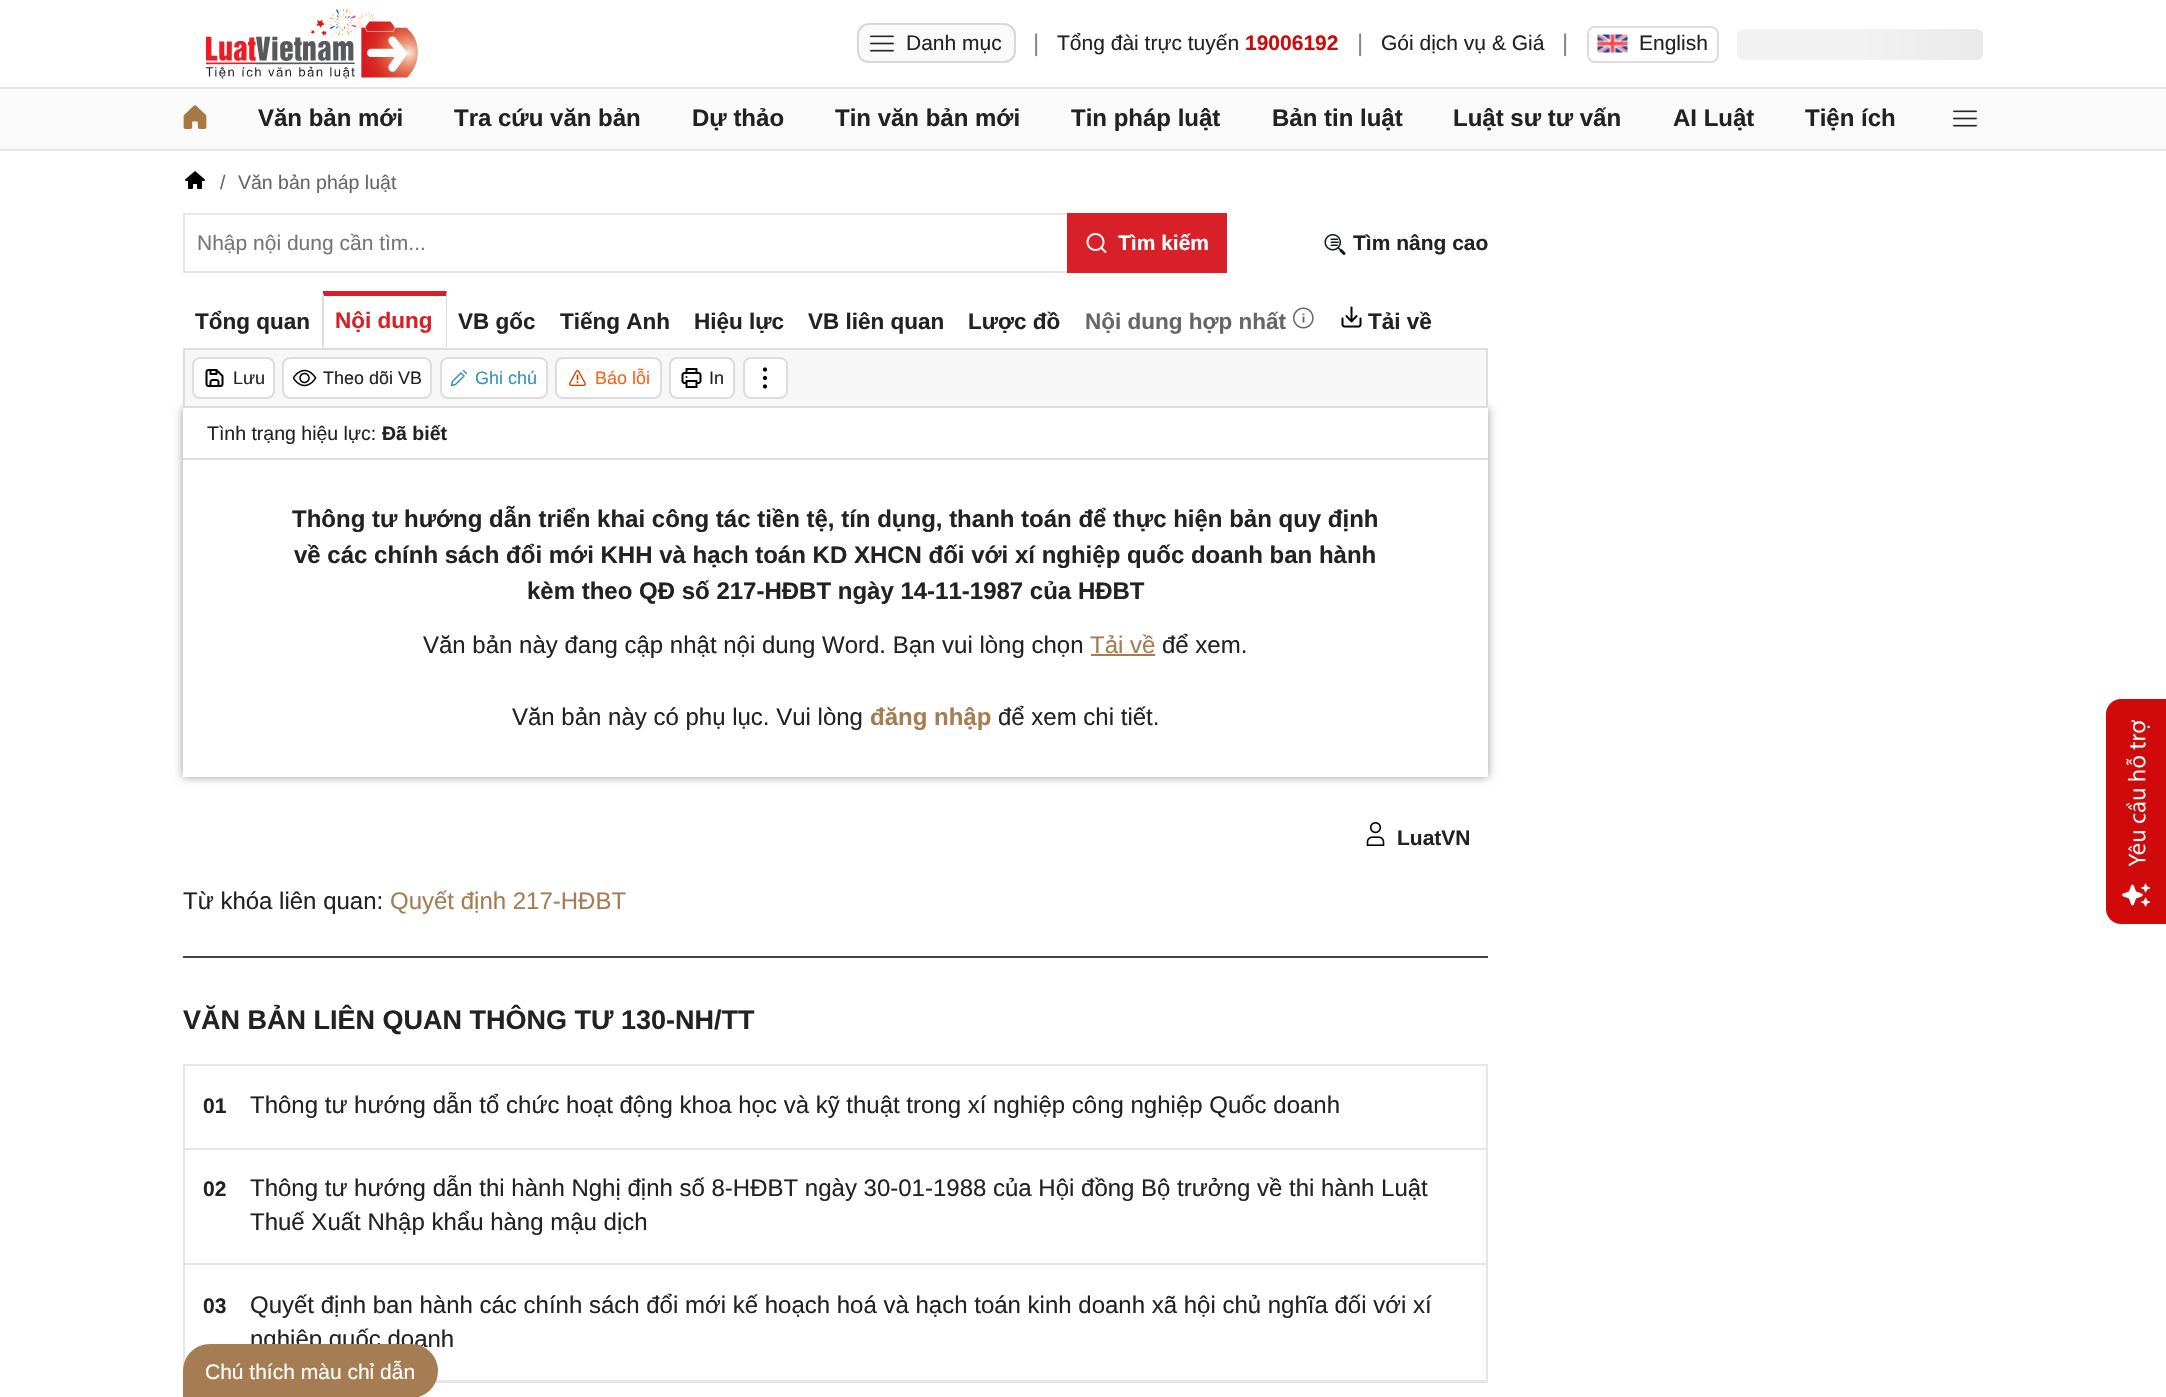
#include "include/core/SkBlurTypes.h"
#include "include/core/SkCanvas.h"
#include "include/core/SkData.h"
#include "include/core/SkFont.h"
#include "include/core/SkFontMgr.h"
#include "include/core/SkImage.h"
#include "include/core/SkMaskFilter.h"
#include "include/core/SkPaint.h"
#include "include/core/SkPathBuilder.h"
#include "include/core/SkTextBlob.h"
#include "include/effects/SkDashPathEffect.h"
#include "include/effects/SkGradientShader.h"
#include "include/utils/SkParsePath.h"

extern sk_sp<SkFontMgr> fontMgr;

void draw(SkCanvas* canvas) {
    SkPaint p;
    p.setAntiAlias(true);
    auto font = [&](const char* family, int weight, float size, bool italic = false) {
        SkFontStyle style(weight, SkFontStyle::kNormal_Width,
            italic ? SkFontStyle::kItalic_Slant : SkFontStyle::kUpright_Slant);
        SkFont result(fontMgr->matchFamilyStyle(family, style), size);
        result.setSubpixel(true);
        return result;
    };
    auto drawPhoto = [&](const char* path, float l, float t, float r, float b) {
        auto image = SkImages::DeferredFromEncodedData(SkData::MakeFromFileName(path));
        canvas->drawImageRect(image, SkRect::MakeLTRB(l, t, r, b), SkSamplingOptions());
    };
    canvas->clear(0xFFFFFFFF);
    p.setColor(0xFFE6E6E6);
    canvas->drawRect(SkRect::MakeLTRB(0, 87, 2166, 89), p);
    drawPhoto("media/1.png", 205, 8, 418, 79);
    p.setColor(0xFFFAFAFA);
    canvas->drawRoundRect(SkRect::MakeLTRB(858, 24, 1015, 62), 11, 11, p);
    p.setStyle(SkPaint::kStroke_Style);
    p.setStrokeWidth(2);
    p.setColor(0xFFD7D8D9);
    canvas->drawRoundRect(SkRect::MakeLTRB(858, 24, 1015, 62), 11, 11, p);
    drawPhoto("media/2.png", 870, 35, 894, 52);
    auto font1 = font("Liberation Sans", 400, 21);
    p.setStyle(SkPaint::kFill_Style);
    p.setColor(0xFF222222);
    canvas->drawString("Danh mục", 906, 50, font1, p);
    auto font2 = font("Liberation Sans", 400, 24);
    p.setColor(0xFF85868A);
    canvas->drawString("|", 1033, 51, font2, p);
    p.setColor(0xFF222222);
    canvas->drawString("Tổng đài trực tuyến", 1057, 50, font1, p);
    auto font3 = font("Liberation Sans", 700, 21);
    p.setColor(0xFFD00A0A);
    canvas->drawString("19006192", 1245, 50, font3, p);
    p.setColor(0xFF85868A);
    canvas->drawString("|", 1357, 51, font2, p);
    p.setColor(0xFF222222);
    canvas->drawString("Gói dịch vụ & Giá", 1381, 50, font1, p);
    p.setColor(0xFF85868A);
    canvas->drawString("|", 1562, 51, font2, p);
    p.setStyle(SkPaint::kStroke_Style);
    p.setColor(0xFFDDDDDD);
    canvas->drawRoundRect(SkRect::MakeLTRB(1588, 27, 1718, 62), 7, 7, p);
    drawPhoto("media/3.png", 1597, 34, 1628, 53);
    p.setStyle(SkPaint::kFill_Style);
    p.setColor(0xFF222222);
    canvas->drawString("English", 1639, 50, font1, p);
    {
        const SkColor colors[] = {0xFFF2F2F2, 0xFFEAEAEA, 0xFFF2F2F2};
        const float stops[] = {0.25f, 0.5f, 0.75f};
        const SkPoint ends[] = {{1737, 44}, {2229, 44}};
        p.setShader(SkGradientShader::MakeLinear(ends, colors, stops, 3, SkTileMode::kClamp));
        p.setAlpha(255);
    }
    canvas->drawRoundRect(SkRect::MakeLTRB(1737, 29, 1983, 60), 6, 6, p);
    p.setShader(nullptr);
    p.setColor(0xFFFAFAFA);
    canvas->drawRect(SkRect::MakeLTRB(0, 89, 2166, 149), p);
    p.setColor(0xFFE6E6E6);
    canvas->drawRect(SkRect::MakeLTRB(0, 149, 2166, 151), p);
    drawPhoto("media/4.png", 183, 105, 207, 129);
    auto font4 = font("Liberation Sans", 700, 24);
    p.setColor(0xFF222222);
    {
        const struct { const char* s; float x, y; } items[] = {
            {"Văn bản mới", 258, 126},
            {"Tra cứu văn bản", 454, 126},
            {"Dự thảo", 692, 126},
            {"Tin văn bản mới", 835, 126},
            {"Tin pháp luật", 1071, 126},
            {"Bản tin luật", 1272, 126},
            {"Luật sư tư vấn", 1453, 126},
            {"AI Luật", 1673, 126},
            {"Tiện ích", 1805, 126},
        };
        for (auto [s, x, y] : items) {
            canvas->drawString(s, x, y, font4, p);
        }
    }
    drawPhoto("media/2.png", 1953, 110, 1977, 127);
    drawPhoto("media/5.png", 185, 171, 205, 189);
    auto font5 = font("Liberation Sans", 400, 19.5f);
    p.setColor(0xFF666666);
    canvas->drawString("/", 220, 189, font5, p);
    canvas->drawString("Văn bản pháp luật", 238, 189, font5, p);
    p.setStyle(SkPaint::kStroke_Style);
    p.setColor(0xFFE6E6E6);
    canvas->drawRect(SkRect::MakeLTRB(184, 214, 1226, 272), p);
    p.setStyle(SkPaint::kFill_Style);
    p.setColor(0xFF757575);
    canvas->drawString("Nhập nội dung cần tìm...", 197, 250, font1, p);
    p.setColor(0xFFD72027);
    canvas->drawRect(SkRect::MakeLTRB(1067, 213, 1227, 273), p);
    drawPhoto("media/6.png", 1086, 233, 1107, 253);
    p.setColor(0xFFFFFFFF);
    canvas->drawString("Tìm kiếm", 1118, 250, font3, p);
    drawPhoto("media/7.png", 1324, 234, 1346, 255);
    p.setColor(0xFF222222);
    canvas->drawString("Tìm nâng cao", 1353, 250, font3, p);
    p.setColor(0xFF444444);
    canvas->drawRect(SkRect::MakeLTRB(183, 956, 1488, 958), p);
    p.setColor(0xFFD72027);
    canvas->drawPath(SkPathBuilder().moveTo(322, 291).lineTo(447, 291).lineTo(446, 296).lineTo(324, 296).close().detach(), p);
    p.setColor(0xFFDDDDDD);
    canvas->drawPath(SkPathBuilder().moveTo(447, 291).lineTo(447, 348).lineTo(446, 346).lineTo(446, 296).close().detach(), p);
    p.setColor(0xFFF7F7F7);
    canvas->drawRect(SkRect::MakeLTRB(323, 347, 447, 348), p);
    p.setColor(0xFFDDDDDD);
    canvas->drawPath(SkPathBuilder().moveTo(322, 348).lineTo(322, 291).lineTo(324, 296).lineTo(324, 346).close().detach(), p);
    p.setColor(0xFFFFFFFF);
    canvas->drawRect(SkRect::MakeLTRB(322, 291, 323, 296), p);
    auto font6 = font("Liberation Sans", 700, 22.5f);
    p.setColor(0xFF222222);
    canvas->drawString("Tổng quan", 195, 329, font6, p);
    p.setColor(0xFFD72027);
    canvas->drawString("Nội dung", 335, 328, font6, p);
    p.setColor(0xFF222222);
    {
        const struct { const char* s; float x, y; } items[] = {
            {"VB gốc", 458, 329},
            {"Tiếng Anh", 560, 329},
            {"Hiệu lực", 694, 329},
            {"VB liên quan", 808, 329},
            {"Lược đồ", 968, 329},
        };
        for (auto [s, x, y] : items) {
            canvas->drawString(s, x, y, font6, p);
        }
    }
    p.setColor(0xFF666666);
    canvas->drawString("Nội dung hợp nhất", 1085, 329, font6, p);
    drawPhoto("media/8.png", 1293, 307, 1314, 329);
    drawPhoto("media/9.png", 1341, 306, 1362, 328);
    p.setColor(0xFF222222);
    canvas->drawString("Tải về", 1368, 329, font6, p);
    canvas->save();
    canvas->clipPath(SkPathBuilder(SkPathFillType::kEvenOdd).moveTo(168, 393).lineTo(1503, 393).lineTo(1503, 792).lineTo(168, 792).close().moveTo(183, 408).lineTo(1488, 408).lineTo(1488, 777).lineTo(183, 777).close().detach(), true);
    p.setColor(0xFF999999);
    p.setMaskFilter(SkMaskFilter::MakeBlur(kNormal_SkBlurStyle, 4.5f));
    canvas->drawRect(SkRect::MakeLTRB(183, 408, 1488, 777), p);
    p.setMaskFilter(nullptr);
    canvas->restore();
    p.setColor(0xFFF7F7F7);
    canvas->drawRect(SkRect::MakeLTRB(184, 349, 1487, 407), p);
    p.setStyle(SkPaint::kStroke_Style);
    p.setColor(0xFFDDDDDD);
    canvas->drawRect(SkRect::MakeLTRB(184, 349, 1487, 407), p);
    p.setStyle(SkPaint::kFill_Style);
    p.setColor(0xFFFFFFFF);
    canvas->drawRoundRect(SkRect::MakeLTRB(193, 358, 274, 398), 7, 7, p);
    p.setStyle(SkPaint::kStroke_Style);
    p.setColor(0xFFDDDDDD);
    canvas->drawRoundRect(SkRect::MakeLTRB(193, 358, 274, 398), 7, 7, p);
    drawPhoto("media/10.png", 205, 369, 224, 387);
    auto font7 = font("Liberation Sans", 400, 18);
    p.setStyle(SkPaint::kFill_Style);
    p.setColor(0xFF222222);
    canvas->drawString("Lưu", 233, 384, font7, p);
    p.setColor(0xFFFFFFFF);
    canvas->drawRoundRect(SkRect::MakeLTRB(283, 358, 431, 398), 7, 7, p);
    p.setStyle(SkPaint::kStroke_Style);
    p.setColor(0xFFDDDDDD);
    canvas->drawRoundRect(SkRect::MakeLTRB(283, 358, 431, 398), 7, 7, p);
    drawPhoto("media/11.png", 293, 369, 317, 387);
    p.setStyle(SkPaint::kFill_Style);
    p.setColor(0xFF222222);
    canvas->drawString("Theo dõi VB", 323, 384, font7, p);
    p.setColor(0xFFFFFFFF);
    canvas->drawRoundRect(SkRect::MakeLTRB(441, 358, 547, 398), 7, 7, p);
    p.setStyle(SkPaint::kStroke_Style);
    p.setColor(0xFFDDDDDD);
    canvas->drawRoundRect(SkRect::MakeLTRB(441, 358, 547, 398), 7, 7, p);
    p.setStrokeWidth(1.5f);
    p.setStrokeCap(SkPaint::kRound_Cap);
    p.setStrokeJoin(SkPaint::kRound_Join);
    p.setColor(0xFF3792B4);
    canvas->drawPath(SkPathBuilder().moveTo(463.5f, 370.5f).lineTo(466.5f, 373.5f).moveTo(455.5f, 384.5f).lineTo(464, 376).lineTo(461, 373).lineTo(452.5f, 381.5f).lineTo(451.5f, 385.5f).close().detach(), p);
    p.setStyle(SkPaint::kFill_Style);
    canvas->drawString("Ghi chú", 475, 384, font7, p);
    p.setColor(0xFFFFFFFF);
    canvas->drawRoundRect(SkRect::MakeLTRB(556, 358, 661, 398), 7, 7, p);
    p.setStyle(SkPaint::kStroke_Style);
    p.setStrokeWidth(2);
    p.setStrokeCap(SkPaint::kButt_Cap);
    p.setStrokeJoin(SkPaint::kMiter_Join);
    p.setColor(0xFFDDDDDD);
    canvas->drawRoundRect(SkRect::MakeLTRB(556, 358, 661, 398), 7, 7, p);
    drawPhoto("media/12.png", 569, 370, 586, 386);
    p.setStyle(SkPaint::kFill_Style);
    p.setColor(0xFFF26522);
    canvas->drawString("Báo lỗi", 595, 384, font7, p);
    p.setColor(0xFFFFFFFF);
    canvas->drawRoundRect(SkRect::MakeLTRB(670, 358, 734, 398), 7, 7, p);
    p.setStyle(SkPaint::kStroke_Style);
    p.setColor(0xFFDDDDDD);
    canvas->drawRoundRect(SkRect::MakeLTRB(670, 358, 734, 398), 7, 7, p);
    drawPhoto("media/13.png", 681, 368, 702, 388);
    p.setStyle(SkPaint::kFill_Style);
    p.setColor(0xFF222222);
    canvas->drawString("In", 709, 384, font7, p);
    p.setColor(0xFFFFFFFF);
    canvas->drawRoundRect(SkRect::MakeLTRB(744, 358, 787, 398), 7, 7, p);
    p.setStyle(SkPaint::kStroke_Style);
    p.setColor(0xFFDDDDDD);
    canvas->drawRoundRect(SkRect::MakeLTRB(744, 358, 787, 398), 7, 7, p);
    drawPhoto("media/14.png", 762, 367, 768, 389);
    p.setStyle(SkPaint::kFill_Style);
    canvas->drawRect(SkRect::MakeLTRB(183, 458, 1488, 460), p);
    p.setColor(0xFF222222);
    canvas->drawString("Tình trạng hiệu lực:", 207, 440, font5, p);
    auto font8 = font("Liberation Sans", 700, 19.5f);
    canvas->drawString("Đã biết", 382, 440, font8, p);
    {
        const struct { const char* s; float x, y; } items[] = {
            {"Thông tư hướng dẫn triển khai công tác tiền tệ, tín dụng, thanh toán để thực hiện bản quy định", 292, 527},
            {"về các chính sách đổi mới KHH và hạch toán KD XHCN đối với xí nghiệp quốc doanh ban hành", 294, 563},
            {"kèm theo QĐ số 217-HĐBT ngày 14-11-1987 của HĐBT", 527, 599},
        };
        for (auto [s, x, y] : items) {
            canvas->drawString(s, x, y, font4, p);
        }
    }
    canvas->drawString("Văn bản này đang cập nhật nội dung Word. Bạn vui lòng chọn", 423, 653, font2, p);
    p.setColor(0xFFA67C52);
    canvas->drawString("Tải về", 1090, 653, font2, p);
    canvas->drawRect(SkRect::MakeLTRB(1091, 654, 1155, 656), p);
    p.setColor(0xFF222222);
    canvas->drawString("để xem.", 1162, 653, font2, p);
    canvas->drawString("Văn bản này có phụ lục. Vui lòng", 512, 725, font2, p);
    p.setColor(0xFFA67C52);
    canvas->drawString("đăng nhập", 870, 725, font4, p);
    p.setColor(0xFF222222);
    canvas->drawString("để xem chi tiết.", 998, 725, font2, p);
    drawPhoto("media/15.png", 1366, 822, 1385, 846);
    canvas->drawString("LuatVN", 1397, 845, font3, p);
    canvas->drawString("Từ khóa liên quan:", 183, 909, font2, p);
    p.setColor(0xFFA67C52);
    canvas->drawString("Quyết định 217-HĐBT", 390, 909, font2, p);
    auto font9 = font("Liberation Sans", 700, 27);
    p.setColor(0xFF222222);
    canvas->drawString("VĂN BẢN LIÊN QUAN THÔNG TƯ 130-NH/TT", 183, 1029, font9, p);
    p.setStyle(SkPaint::kStroke_Style);
    p.setColor(0xFFE6E6E6);
    canvas->drawRect(SkRect::MakeLTRB(184, 1065, 1487, 1382), p);
    p.setStyle(SkPaint::kFill_Style);
    canvas->drawRect(SkRect::MakeLTRB(185, 1148, 1487, 1150), p);
    p.setColor(0xFF222222);
    canvas->drawString("01", 203, 1113, font3, p);
    canvas->drawString("Thông tư hướng dẫn tổ chức hoạt động khoa học và kỹ thuật trong xí nghiệp công nghiệp Quốc doanh", 250, 1113, font2, p);
    p.setColor(0xFFE6E6E6);
    canvas->drawRect(SkRect::MakeLTRB(185, 1263, 1487, 1265), p);
    p.setColor(0xFF222222);
    canvas->drawString("02", 203, 1196, font3, p);
    canvas->drawString("Thông tư hướng dẫn thi hành Nghị định số 8-HĐBT ngày 30-01-1988 của Hội đồng Bộ trưởng về thi hành Luật", 250, 1196, font2, p);
    canvas->drawString("Thuế Xuất Nhập khẩu hàng mậu dịch", 250, 1230, font2, p);
    p.setColor(0xFFE6E6E6);
    canvas->drawRect(SkRect::MakeLTRB(435, 1380, 1487, 1381), p);
    p.setColor(0xFF222222);
    canvas->drawString("03", 203, 1313, font3, p);
    canvas->drawString("Quyết định ban hành các chính sách đổi mới kế hoạch hoá và hạch toán kinh doanh xã hội chủ nghĩa đối với xí", 250, 1313, font2, p);
    canvas->drawString("nghiệp quốc doanh", 250, 1347, font2, p);
    drawPhoto("media/16.png", 2106, 699, 2166, 924);
    p.setColor(0xFFA67C52);
    canvas->drawPath(SkPathBuilder().moveTo(210, 1344).lineTo(411, 1344).cubicTo(426, 1344, 438, 1356, 438, 1371).cubicTo(438, 1386, 426, 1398, 411, 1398).lineTo(183, 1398).lineTo(183, 1371).cubicTo(183, 1356, 195, 1344, 210, 1344).close().detach(), p);
    p.setColor(0xFFFFFFFF);
    canvas->drawString("Chú thích màu chỉ dẫn", 205, 1379, font1, p);
}
